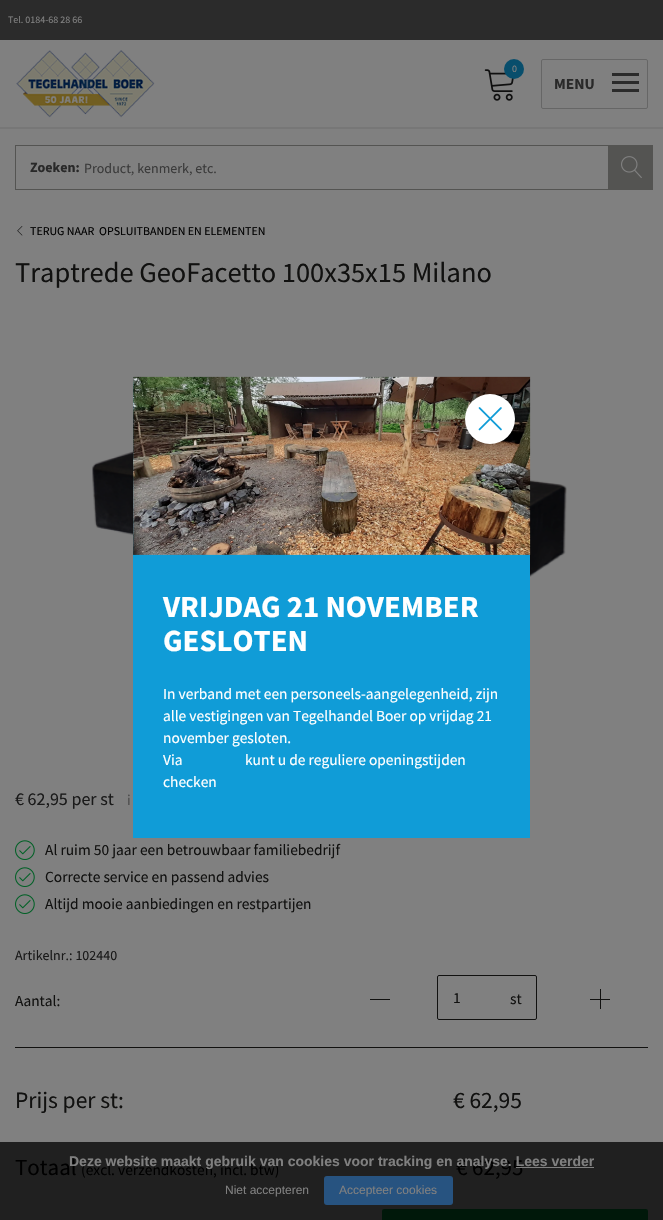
#include "include/core/SkBlurTypes.h"
#include "include/core/SkCanvas.h"
#include "include/core/SkData.h"
#include "include/core/SkFont.h"
#include "include/core/SkFontMgr.h"
#include "include/core/SkImage.h"
#include "include/core/SkMaskFilter.h"
#include "include/core/SkPaint.h"
#include "include/core/SkPathBuilder.h"
#include "include/core/SkTextBlob.h"
#include "include/effects/SkDashPathEffect.h"
#include "include/effects/SkGradientShader.h"
#include "include/utils/SkParsePath.h"

extern sk_sp<SkFontMgr> fontMgr;

void draw(SkCanvas* canvas) {
    SkPaint p;
    p.setAntiAlias(true);
    auto font = [&](const char* family, int weight, float size, bool italic = false) {
        SkFontStyle style(weight, SkFontStyle::kNormal_Width,
            italic ? SkFontStyle::kItalic_Slant : SkFontStyle::kUpright_Slant);
        SkFont result(fontMgr->matchFamilyStyle(family, style), size);
        result.setSubpixel(true);
        return result;
    };
    auto drawPhoto = [&](const char* path, float l, float t, float r, float b) {
        auto image = SkImages::DeferredFromEncodedData(SkData::MakeFromFileName(path));
        canvas->drawImageRect(image, SkRect::MakeLTRB(l, t, r, b), SkSamplingOptions());
    };
    canvas->clear(0xFF808080);
    p.setColor(0xFF202020);
    canvas->drawRect(SkRect::MakeLTRB(0, 1142, 663, 1220), p);
    p.setColor(0xFF2B2B2B);
    canvas->drawRect(SkRect::MakeLTRB(0, 0, 663, 40), p);
    auto font1 = font("Source Sans Pro", 400, 10);
    p.setColor(0xFF808080);
    canvas->drawString("Tel. 0184-68 28 66", 8, 23, font1, p);
    p.setColor(0xFF777777);
    canvas->drawRect(SkRect::MakeLTRB(0, 127, 663, 129), p);
    drawPhoto("media/1.png", 16, 50, 155, 118);
    drawPhoto("media/2.png", 484, 69, 514, 101);
    p.setColor(0xFF084E6C);
    canvas->drawCircle(514, 69, 10, p);
    p.setColor(0xFF808080);
    canvas->drawString("0", 512, 72, font1, p);
    p.setStyle(SkPaint::kStroke_Style);
    p.setStrokeWidth(1);
    p.setColor(0xFF666666);
    canvas->drawRoundRect(SkRect::MakeLTRB(541.5f, 59.5f, 647.5f, 108.5f), 1.5f, 1.5f, p);
    auto font2 = font("Source Sans Pro", 700, 15.4f);
    p.setStyle(SkPaint::kFill_Style);
    p.setColor(0xFF292929);
    canvas->drawString("MENU", 554, 89, font2, p);
    {
        const struct { float l, t, r, b; SkColor color; } items[] = {
            {612, 73, 639, 76, 0xFF2B2B2B},
            {612, 81, 639, 84, 0xFF2B2B2B},
            {612, 89, 639, 92, 0xFF2B2B2B},
        };
        for (auto [l, t, r, b, color] : items) {
            p.setColor(color);
            canvas->drawRect(SkRect::MakeLTRB(l, t, r, b), p);
        }
    }
    auto font3 = font("Source Sans Pro", 700, 14);
    p.setColor(0xFF292929);
    canvas->drawString("Zoeken:", 30, 172, font3, p);
    p.setStyle(SkPaint::kStroke_Style);
    p.setColor(0xFF545452);
    canvas->drawRect(SkRect::MakeLTRB(15.5f, 145.5f, 612.5f, 189.5f), p);
    auto font4 = font("Source Sans Pro", 400, 14);
    p.setStyle(SkPaint::kFill_Style);
    p.setColor(0xFF3B3B3B);
    canvas->drawString("Product, kenmerk, etc.", 84, 173, font4, p);
    p.setColor(0xFF545452);
    canvas->drawRect(SkRect::MakeLTRB(608, 145, 653, 190), p);
    drawPhoto("media/3.png", 621, 156, 642, 178);
    drawPhoto("media/4.png", 17, 226, 23, 236);
    auto font5 = font("Source Sans Pro", 400, 11.9f);
    p.setColor(0xFF000000);
    canvas->drawString("TERUG NAAR", 30, 235, font5, p);
    canvas->drawString("OPSLUITBANDEN EN ELEMENTEN", 99, 235, font5, p);
    auto font6 = font("Source Sans Pro", 400, 28.4f);
    p.setColor(0xFF111110);
    canvas->drawString("Traptrede GeoFacetto 100x35x15 Milano", 15, 282, font6, p);
    drawPhoto("media/5.png", 92, 451, 567, 577);
    auto font7 = font("Source Sans Pro", 400, 18);
    p.setColor(0xFF1A1A1A);
    canvas->drawString("€ 62,95 per st", 15, 805, font7, p);
    auto font8 = font("Source Sans Pro", 400, 15);
    p.setColor(0xFF4D4D4D);
    canvas->drawString("i", 127, 805, font8, p);
    drawPhoto("media/6.png", 15, 840, 35, 860);
    auto font9 = font("Source Sans Pro", 400, 15.4f);
    p.setColor(0xFF111110);
    canvas->drawString("Al ruim 50 jaar een betrouwbaar familiebedrijf", 45, 855, font9, p);
    drawPhoto("media/6.png", 15, 867, 35, 887);
    canvas->drawString("Correcte service en passend advies", 45, 882, font9, p);
    drawPhoto("media/6.png", 15, 894, 35, 914);
    canvas->drawString("Altijd mooie aanbiedingen en restpartijen", 45, 909, font9, p);
    p.setColor(0xFF1A1A1A);
    canvas->drawString("Artikelnr.: 102440", 15, 960, font4, p);
    p.setColor(0xFF111110);
    canvas->drawRect(SkRect::MakeLTRB(15, 1047, 648, 1048), p);
    canvas->drawString("Aantal:", 15, 1006, font9, p);
    canvas->drawRect(SkRect::MakeLTRB(370, 999, 390, 1000), p);
    p.setStyle(SkPaint::kStroke_Style);
    canvas->drawRoundRect(SkRect::MakeLTRB(437.5f, 975.5f, 536.5f, 1019.5f), 1.5f, 1.5f, p);
    p.setStyle(SkPaint::kFill_Style);
    canvas->drawString("1", 453, 1003, font9, p);
    canvas->drawString("st", 510, 1004, font9, p);
    canvas->drawRect(SkRect::MakeLTRB(590, 999, 610, 1000), p);
    canvas->drawRect(SkRect::MakeLTRB(600, 989, 601, 1009), p);
    auto font10 = font("Source Sans Pro", 400, 23.5f);
    canvas->drawString("Prijs per st:", 15, 1108, font10, p);
    canvas->drawString("€ 62,95", 453, 1108, font10, p);
    auto font11 = font("Source Sans Pro", 400, 23);
    p.setColor(0xFF000000);
    canvas->drawString("Totaal", 15, 1175, font11, p);
    canvas->drawString("(excl. verzendkosten, incl. btw)", 81, 1175, font9, p);
    canvas->drawString("€ 62,95", 456, 1175, font11, p);
    p.setColor(0xFF00180A);
    canvas->drawRoundRect(SkRect::MakeLTRB(382, 1209, 648, 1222), 2, 2, p);
    p.setColor(0xFF109CD7);
    canvas->drawRect(SkRect::MakeLTRB(133, 382, 530, 838), p);
    drawPhoto("media/8.png", 133, 376, 531, 555);
    p.setColor(0xFFFFFFFF);
    canvas->drawCircle(490, 419, 25, p);
    drawPhoto("media/7.png", 478, 407, 502, 431);
    auto font12 = font("Source Sans Pro", 700, 30.75f);
    canvas->drawString("VRIJDAG 21 NOVEMBER", 163, 617, font12, p);
    canvas->drawString("GESLOTEN", 163, 651, font12, p);
    {
        const struct { const char* s; float x, y; } items[] = {
            {"In verband met een personeels-aangelegenheid, zijn", 163, 699},
            {"alle vestigingen van Tegelhandel Boer op vrijdag 21", 163, 721},
            {"november gesloten.", 163, 743},
            {"Via", 163, 765},
            {"kunt u de reguliere openingstijden", 245, 765},
            {"checken", 163, 787},
        };
        for (auto [s, x, y] : items) {
            canvas->drawString(s, x, y, font9, p);
        }
    }
    auto font13 = font("Liberation Sans", 700, 14);
    p.setColor(0xFF808080);
    canvas->drawString("Deze website maakt gebruik van cookies voor tracking en analyse. Lees verder", 69, 1166, font13, p);
    canvas->drawRect(SkRect::MakeLTRB(516, 1167, 594, 1168), p);
    auto font14 = font("Liberation Sans", 400, 12);
    canvas->drawString("Niet accepteren", 225, 1194, font14, p);
    p.setColor(0xFF275380);
    canvas->drawRoundRect(SkRect::MakeLTRB(324, 1176, 453, 1205), 3, 3, p);
    p.setColor(0xFF808080);
    canvas->drawString("Accepteer cookies", 339, 1194, font14, p);
}
